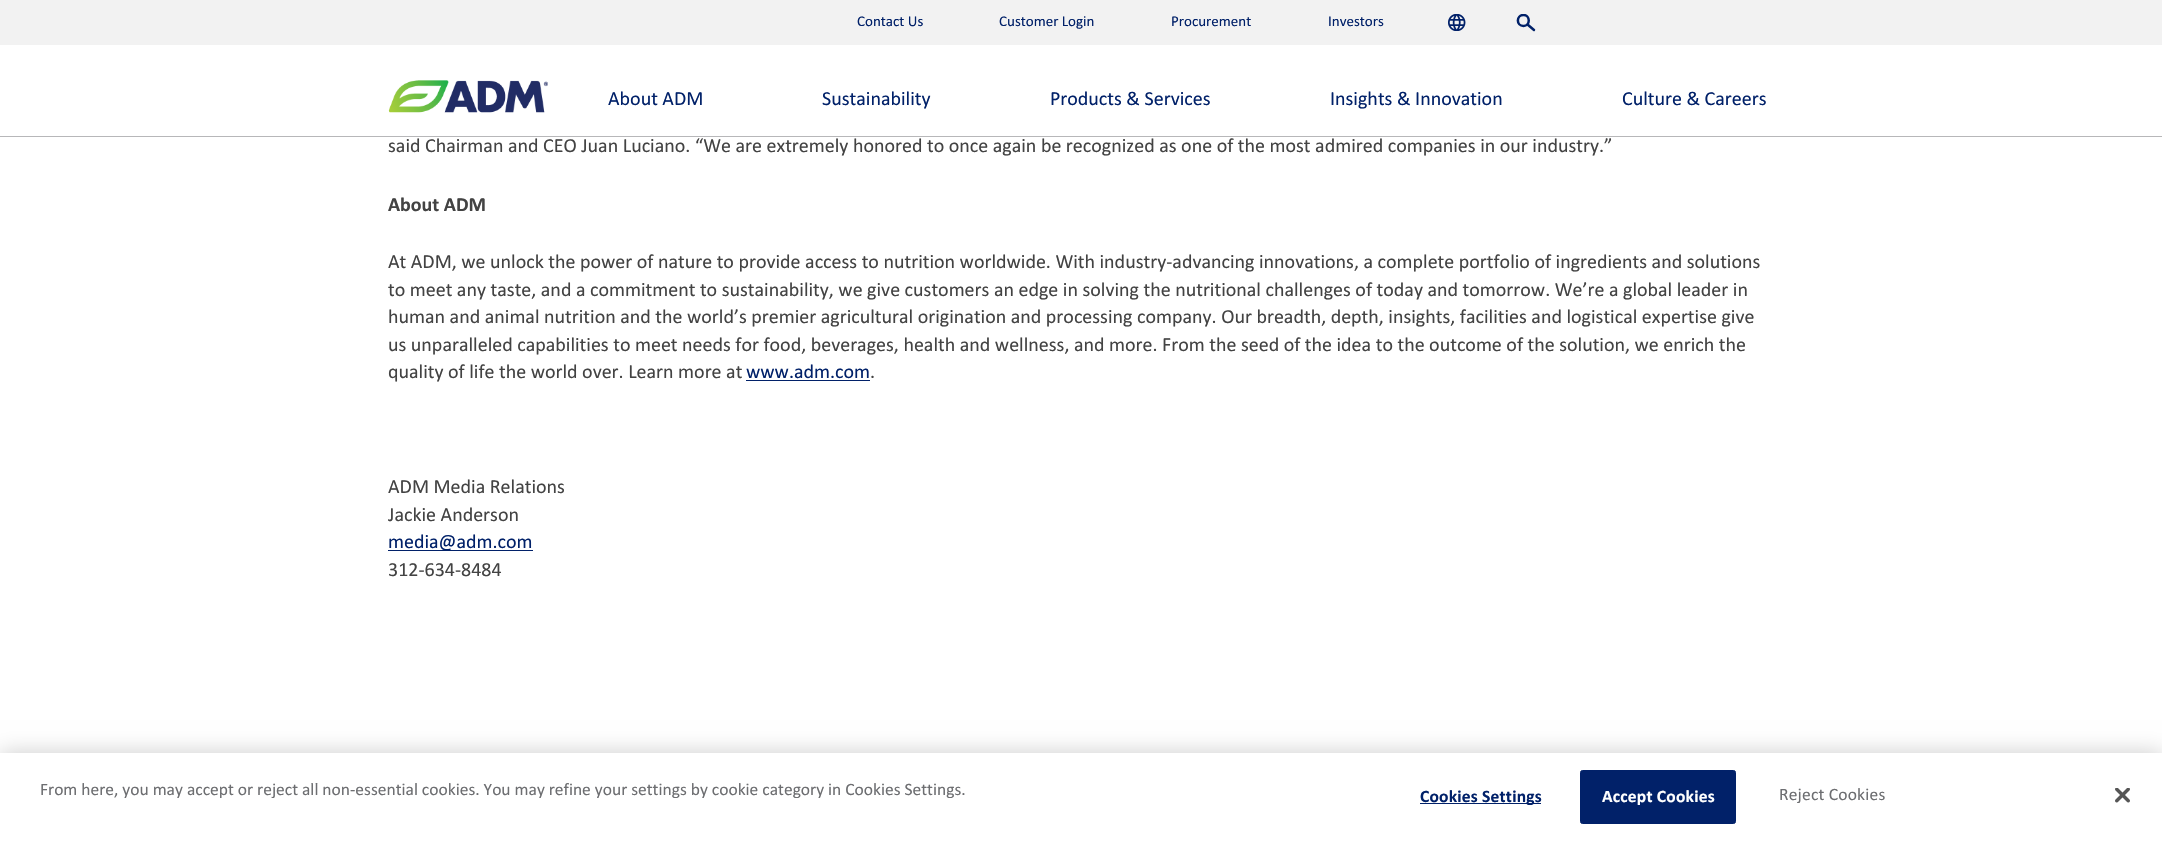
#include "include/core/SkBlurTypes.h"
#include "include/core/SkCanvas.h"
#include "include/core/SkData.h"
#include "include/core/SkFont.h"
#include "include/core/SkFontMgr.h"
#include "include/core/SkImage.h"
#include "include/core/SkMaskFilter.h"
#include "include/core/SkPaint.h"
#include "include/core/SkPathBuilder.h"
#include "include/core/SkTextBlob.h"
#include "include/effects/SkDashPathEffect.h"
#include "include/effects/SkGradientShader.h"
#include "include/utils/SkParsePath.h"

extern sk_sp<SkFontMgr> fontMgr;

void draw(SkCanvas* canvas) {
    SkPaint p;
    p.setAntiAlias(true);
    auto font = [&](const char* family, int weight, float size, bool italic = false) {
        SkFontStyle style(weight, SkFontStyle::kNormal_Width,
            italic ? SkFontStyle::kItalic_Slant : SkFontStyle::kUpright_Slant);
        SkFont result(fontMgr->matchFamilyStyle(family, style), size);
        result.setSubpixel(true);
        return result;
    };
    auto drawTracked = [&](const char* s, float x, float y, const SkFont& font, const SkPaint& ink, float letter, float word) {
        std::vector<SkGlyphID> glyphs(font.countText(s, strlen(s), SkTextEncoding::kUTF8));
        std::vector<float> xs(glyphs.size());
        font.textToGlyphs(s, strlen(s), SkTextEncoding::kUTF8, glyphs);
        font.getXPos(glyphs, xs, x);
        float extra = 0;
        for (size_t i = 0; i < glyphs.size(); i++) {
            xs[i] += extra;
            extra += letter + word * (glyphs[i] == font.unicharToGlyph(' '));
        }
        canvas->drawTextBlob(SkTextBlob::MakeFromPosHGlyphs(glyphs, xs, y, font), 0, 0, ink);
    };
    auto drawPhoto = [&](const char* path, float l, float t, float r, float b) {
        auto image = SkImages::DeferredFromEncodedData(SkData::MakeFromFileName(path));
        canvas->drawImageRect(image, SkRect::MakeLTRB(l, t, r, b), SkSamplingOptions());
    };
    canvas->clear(0xFFFFFFFF);
    p.setColor(0xFFF2F2F2);
    canvas->drawRect(SkRect::MakeLTRB(0, 0, 2162, 45), p);
    auto font1 = font("Calibri", 400, 15);
    p.setColor(0xFF012169);
    {
        const struct { const char* s; float x, y; } items[] = {
            {"Contact Us", 857, 26},
            {"Customer Login", 999, 26},
            {"Procurement", 1171, 26},
            {"Investors", 1328, 26},
        };
        for (auto [s, x, y] : items) {
            canvas->drawString(s, x, y, font1, p);
        }
    }
    drawPhoto("media/1.png", 1448, 14, 1466, 31);
    canvas->save();
    canvas->clipRect(SkRect::MakeLTRB(1516, 14, 1536, 33));
    p.setStyle(SkPaint::kStroke_Style);
    p.setStrokeWidth(2.5f);
    p.setStrokeCap(SkPaint::kRound_Cap);
    p.setStrokeJoin(SkPaint::kRound_Join);
    canvas->drawPath(SkPathBuilder().moveTo(1523.5f, 26).cubicTo(1530.5f, 26, 1530.5f, 15, 1523.5f, 15).cubicTo(1516, 15, 1516, 26, 1523.5f, 26).close().detach(), p);
    canvas->restore();
    canvas->drawPath(SkPathBuilder().moveTo(1534, 30).lineTo(1527.5f, 24.5f).detach(), p);
    p.setStyle(SkPaint::kFill_Style);
    p.setColor(0xFFB7B7B9);
    canvas->drawRect(SkRect::MakeLTRB(0, 136, 2162, 137), p);
    drawPhoto("media/2.png", 388, 80, 548, 113);
    auto font2 = font("Calibri", 400, 20);
    p.setColor(0xFF012169);
    {
        const struct { const char* s; float x, y; } items[] = {
            {"About ADM", 608, 105},
            {"Sustainability", 822, 105},
            {"Products & Services", 1050, 105},
            {"Insights & Innovation", 1330, 105},
            {"Culture & Careers", 1622, 105},
        };
        for (auto [s, x, y] : items) {
            canvas->drawString(s, x, y, font2, p);
        }
    }
    p.setColor(0xFF434343);
    canvas->drawString("said Chairman and CEO Juan Luciano. “We are extremely honored to once again be recognized as one of the most admired companies in our industry.”", 388, 152, font2, p);
    auto font3 = font("Calibri", 700, 20);
    canvas->drawString("About ADM", 388, 211, font3, p);
    {
        const struct { const char* s; float x, y; } items[] = {
            {"At ADM, we unlock the power of nature to provide access to nutrition worldwide. With industry-advancing innovations, a complete portfolio of ingredients and solutions", 388, 268},
            {"to meet any taste, and a commitment to sustainability, we give customers an edge in solving the nutritional challenges of today and tomorrow. We’re a global leader in", 388, 296},
            {"human and animal nutrition and the world’s premier agricultural origination and processing company. Our breadth, depth, insights, facilities and logistical expertise give", 388, 323},
            {"us unparalleled capabilities to meet needs for food, beverages, health and wellness, and more. From the seed of the idea to the outcome of the solution, we enrich the", 388, 351},
            {"quality of life the world over. Learn more at", 388, 378},
        };
        for (auto [s, x, y] : items) {
            canvas->drawString(s, x, y, font2, p);
        }
    }
    p.setColor(0xFF012169);
    canvas->drawString("www.adm.com", 746, 378, font2, p);
    canvas->drawRect(SkRect::MakeLTRB(746, 380, 870, 381), p);
    p.setColor(0xFF434343);
    {
        const struct { const char* s; float x, y; } items[] = {
            {".", 870, 378},
            {"ADM Media Relations", 388, 493},
            {"Jackie Anderson", 388, 521},
        };
        for (auto [s, x, y] : items) {
            canvas->drawString(s, x, y, font2, p);
        }
    }
    p.setColor(0xFF012169);
    canvas->drawRect(SkRect::MakeLTRB(388, 550, 533, 551), p);
    canvas->drawString("media@adm.com", 388, 548, font2, p);
    p.setColor(0xFF434343);
    canvas->drawString("312-634-8484", 388, 576, font2, p);
    p.setColor(0x33000000);
    p.setMaskFilter(SkMaskFilter::MakeBlur(kNormal_SkBlurStyle, 11));
    canvas->drawRect(SkRect::MakeLTRB(0, 753, 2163, 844), p);
    p.setMaskFilter(nullptr);
    p.setColor(0xFFFFFFFF);
    canvas->drawRect(SkRect::MakeLTRB(0, 753, 2162, 843), p);
    auto font4 = font("Calibri", 400, 17.5f);
    p.setColor(0xFF6D6E71);
    canvas->drawString("From here, you may accept or reject all non-essential cookies. You may refine your settings by cookie category in Cookies Settings.", 40, 795, font4, p);
    p.setColor(0xFF012169);
    canvas->drawRect(SkRect::MakeLTRB(1420, 803, 1541, 804), p);
    auto font5 = font("Calibri", 700, 17.5f);
    drawTracked("Cookies Settings", 1420, 802, font5, p, 0.2f, 0);
    canvas->drawRoundRect(SkRect::MakeLTRB(1580.5f, 770.5f, 1735.5f, 823.5f), 2, 2, p);
    p.setStyle(SkPaint::kStroke_Style);
    p.setStrokeWidth(1);
    p.setStrokeCap(SkPaint::kButt_Cap);
    p.setStrokeJoin(SkPaint::kMiter_Join);
    canvas->drawRoundRect(SkRect::MakeLTRB(1580.5f, 770.5f, 1735.5f, 823.5f), 2, 2, p);
    p.setStyle(SkPaint::kFill_Style);
    p.setColor(0xFFFFFFFF);
    drawTracked("Accept Cookies", 1602, 802, font5, p, 0.2f, 0);
    p.setColor(0xFF6D6E71);
    drawTracked("Reject Cookies", 1779, 800, font4, p, 0.2f, 0);
    drawPhoto("media/3.png", 2115, 788, 2130, 803);
}
